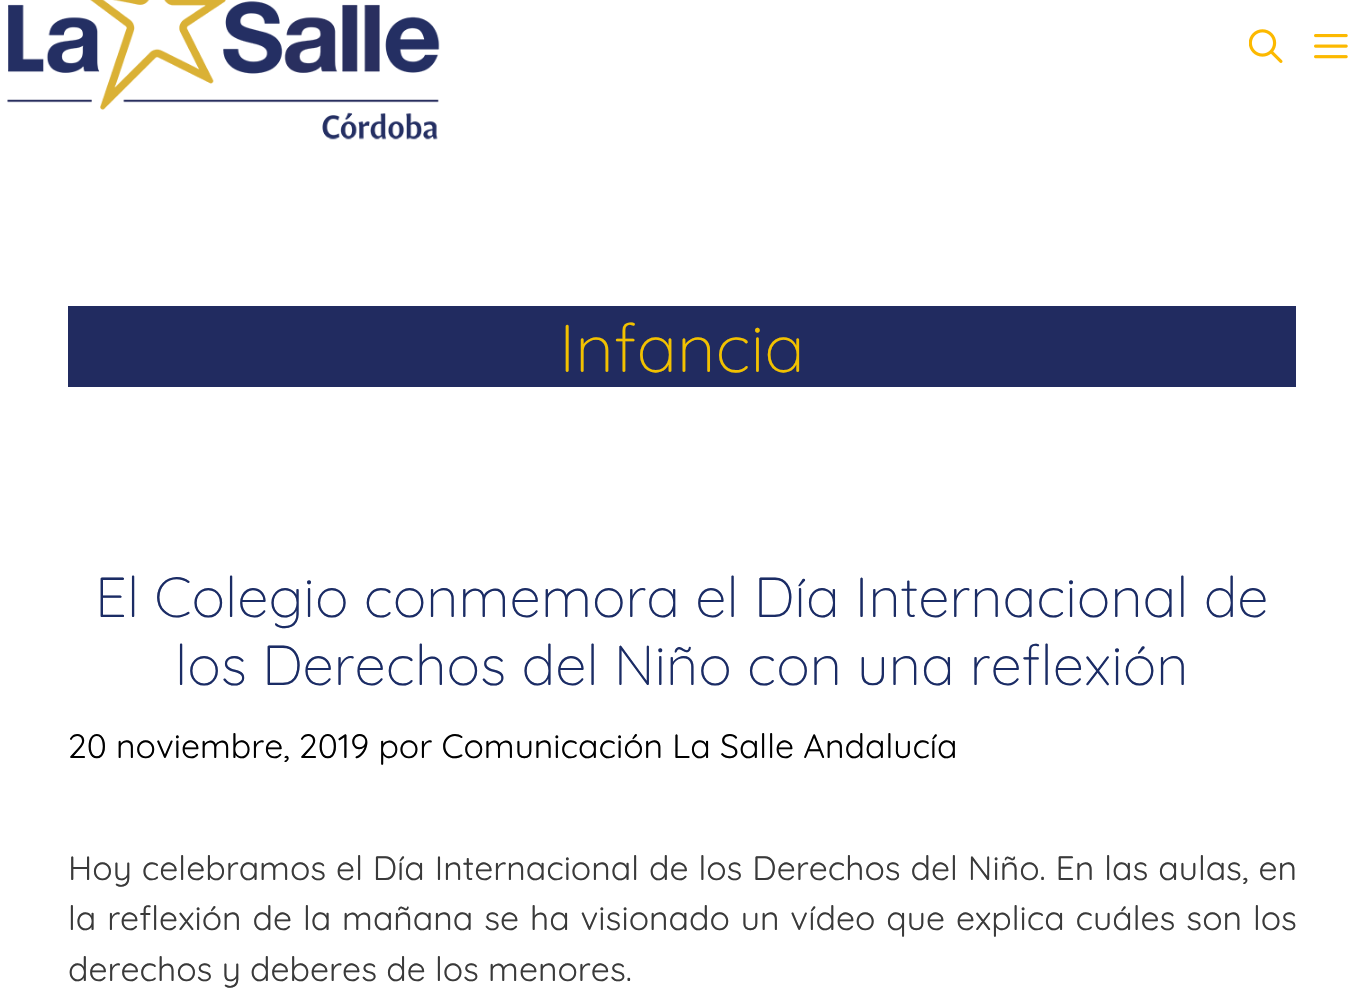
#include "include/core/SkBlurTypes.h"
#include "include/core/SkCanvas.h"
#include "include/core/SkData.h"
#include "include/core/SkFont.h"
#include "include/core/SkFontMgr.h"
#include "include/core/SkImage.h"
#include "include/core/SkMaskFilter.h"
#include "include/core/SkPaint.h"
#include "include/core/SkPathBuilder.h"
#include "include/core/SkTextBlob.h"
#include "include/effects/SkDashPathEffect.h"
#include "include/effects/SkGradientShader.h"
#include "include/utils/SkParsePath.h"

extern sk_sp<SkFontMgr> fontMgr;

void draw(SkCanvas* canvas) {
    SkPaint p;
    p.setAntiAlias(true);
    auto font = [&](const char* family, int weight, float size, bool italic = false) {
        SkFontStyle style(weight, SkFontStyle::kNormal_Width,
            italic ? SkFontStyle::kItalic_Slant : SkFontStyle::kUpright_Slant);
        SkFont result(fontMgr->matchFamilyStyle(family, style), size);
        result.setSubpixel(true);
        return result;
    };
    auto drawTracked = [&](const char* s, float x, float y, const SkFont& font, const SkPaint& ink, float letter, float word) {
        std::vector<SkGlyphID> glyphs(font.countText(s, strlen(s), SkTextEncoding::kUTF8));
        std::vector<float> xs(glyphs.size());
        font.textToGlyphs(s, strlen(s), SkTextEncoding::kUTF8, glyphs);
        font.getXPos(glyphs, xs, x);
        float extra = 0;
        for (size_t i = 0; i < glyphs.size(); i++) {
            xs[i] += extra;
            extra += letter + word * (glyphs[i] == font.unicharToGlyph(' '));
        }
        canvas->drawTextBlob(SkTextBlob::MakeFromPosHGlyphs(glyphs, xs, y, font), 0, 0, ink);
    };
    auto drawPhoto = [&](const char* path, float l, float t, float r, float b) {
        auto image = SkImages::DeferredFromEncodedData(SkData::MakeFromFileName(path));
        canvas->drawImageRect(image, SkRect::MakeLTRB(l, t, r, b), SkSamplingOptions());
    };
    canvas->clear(0xFFFFFFFF);
    drawPhoto("media/1.png", 7, 0, 440, 140);
    drawPhoto("media/2.png", 1249, 29, 1283, 63);
    drawPhoto("media/3.png", 1314, 34, 1348, 59);
    p.setColor(0xFF212B60);
    canvas->drawRect(SkRect::MakeLTRB(68, 306, 1296, 387), p);
    auto font1 = font("Quicksand", 300, 67.5f);
    p.setColor(0xFFF2C100);
    canvas->drawString("Infancia", 559, 372, font1, p);
    auto font2 = font("Quicksand", 300, 56.25f);
    p.setColor(0xFF1B2C65);
    canvas->drawString("El Colegio conmemora el Día Internacional de", 95, 617, font2, p);
    canvas->drawString("los Derechos del Niño con una reflexión", 175, 685, font2, p);
    auto font3 = font("Quicksand", 400, 33.75f);
    p.setColor(0xFF000000);
    canvas->drawString("20 noviembre, 2019 por Comunicación La Salle Andalucía", 68, 758, font3, p);
    p.setColor(0xFF3A3A3A);
    drawTracked("Hoy celebramos el Día Internacional de los Derechos del Niño. En las aulas, en", 68, 880, font3, p, 0, 0.75f);
    drawTracked("la reflexión de la mañana se ha visionado un vídeo que explica cuáles son los", 68, 930, font3, p, 0, 1.7f);
    canvas->drawString("derechos y deberes de los menores.", 68, 981, font3, p);
}
